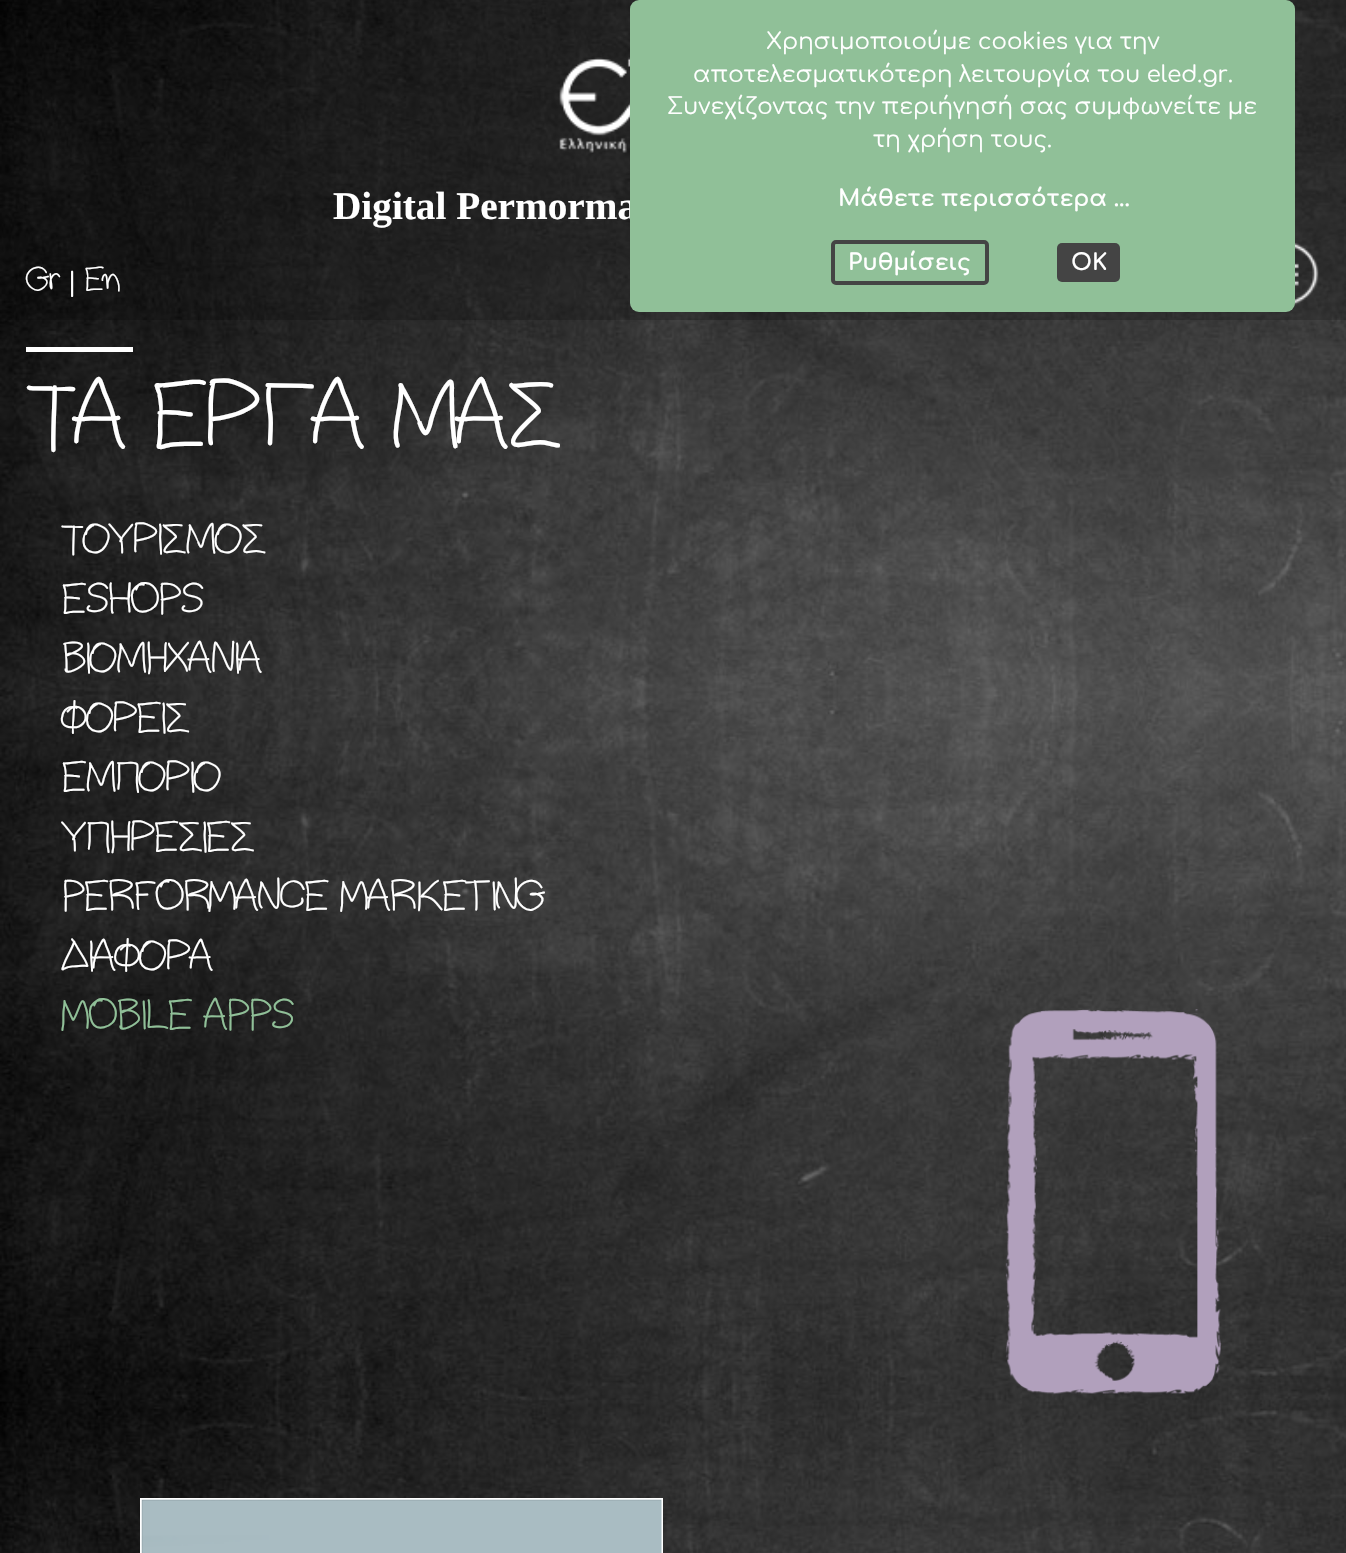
#include "include/core/SkBlurTypes.h"
#include "include/core/SkCanvas.h"
#include "include/core/SkData.h"
#include "include/core/SkFont.h"
#include "include/core/SkFontMgr.h"
#include "include/core/SkImage.h"
#include "include/core/SkMaskFilter.h"
#include "include/core/SkPaint.h"
#include "include/core/SkPathBuilder.h"
#include "include/core/SkTextBlob.h"
#include "include/effects/SkDashPathEffect.h"
#include "include/effects/SkGradientShader.h"
#include "include/utils/SkParsePath.h"

extern sk_sp<SkFontMgr> fontMgr;

void draw(SkCanvas* canvas) {
    SkPaint p;
    p.setAntiAlias(true);
    auto font = [&](const char* family, int weight, float size, bool italic = false) {
        SkFontStyle style(weight, SkFontStyle::kNormal_Width,
            italic ? SkFontStyle::kItalic_Slant : SkFontStyle::kUpright_Slant);
        SkFont result(fontMgr->matchFamilyStyle(family, style), size);
        result.setSubpixel(true);
        return result;
    };
    auto drawPhoto = [&](const char* path, float l, float t, float r, float b) {
        auto image = SkImages::DeferredFromEncodedData(SkData::MakeFromFileName(path));
        canvas->drawImageRect(image, SkRect::MakeLTRB(l, t, r, b), SkSamplingOptions());
    };
    canvas->clear(0xFFFFFFFF);
    drawPhoto("media/1.png", 0, 0, 1346, 1553);
    p.setColor(0x33000000);
    canvas->drawRect(SkRect::MakeLTRB(0, 0, 1346, 320), p);
    drawPhoto("media/2.png", 559, 57, 630, 153);
    auto font1 = font("Liberation Serif", 700, 39.25f);
    p.setColor(0xFFFFFFFF);
    canvas->drawString("Digital Permorma", 333, 219, font1, p);
    auto font2 = font("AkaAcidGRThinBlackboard", 700, 33);
    canvas->drawString("Gr", 26, 291, font2, p);
    auto font3 = font("Comfortaa", 400, 26);
    canvas->drawString("|", 67, 291, font3, p);
    canvas->drawString("En", 84, 291, font2, p);
    drawPhoto("media/3.png", 1294, 242, 1319, 305);
    p.setColor(0xFF90C098);
    canvas->drawRoundRect(SkRect::MakeLTRB(630, 0, 1295, 312), 9, 9, p);
    auto font4 = font("Comfortaa", 400, 22.75f);
    p.setColor(0xFFFFFFFF);
    {
        const struct { const char* s; float x, y; } items[] = {
            {"Χρησιμοποιούμε cookies για την", 766, 49},
            {"αποτελεσματικότερη λειτουργία του eled.gr.", 693, 82},
            {"Συνεχίζοντας την περιήγησή σας συμφωνείτε με", 667, 114},
            {"τη χρήση τους.", 873, 147},
        };
        for (auto [s, x, y] : items) {
            canvas->drawString(s, x, y, font4, p);
        }
    }
    auto font5 = font("Comfortaa", 700, 22.75f);
    canvas->drawString("Μάθετε περισσότερα ...", 838, 206, font5, p);
    p.setStyle(SkPaint::kStroke_Style);
    p.setStrokeWidth(4);
    p.setColor(0xFF444444);
    canvas->drawRoundRect(SkRect::MakeLTRB(833, 242, 987, 283), 3, 3, p);
    p.setStyle(SkPaint::kFill_Style);
    p.setColor(0xFFFFFFFF);
    canvas->drawString("Ρυθμίσεις", 848, 270, font5, p);
    p.setColor(0xFF444444);
    canvas->drawRoundRect(SkRect::MakeLTRB(1057, 243, 1120, 282), 5, 5, p);
    p.setColor(0xFFFFFFFF);
    canvas->drawString("OK", 1071, 270, font5, p);
    canvas->drawRect(SkRect::MakeLTRB(26, 347, 133, 352), p);
    auto font6 = font("AkaAcidGRThinBlackboard", 700, 93.5f);
    canvas->drawString("ΤΑ ΕΡΓΑ ΜΑΣ", 26, 449, font6, p);
    auto font7 = font("AkaAcidGRThinBlackboard", 700, 42);
    {
        const struct { const char* s; float x, y; } items[] = {
            {"ΤΟΥΡΙΣΜΟΣ", 61, 554},
            {"ESHOPS", 61, 614},
            {"ΒΙΟΜΗΧΑΝΙΑ", 61, 673},
            {"ΦΟΡΕΙΣ", 61, 733},
            {"ΕΜΠΟΡΙΟ", 61, 792},
            {"ΥΠΗΡΕΣΙΕΣ", 61, 852},
            {"PERFORMANCE MARKETING", 61, 911},
            {"ΔΙΑΦΟΡΑ", 61, 971},
        };
        for (auto [s, x, y] : items) {
            canvas->drawString(s, x, y, font7, p);
        }
    }
    p.setColor(0xFF90C098);
    canvas->drawString("MOBILE APPS", 61, 1030, font7, p);
    drawPhoto("media/4.png", 1005, 1009, 1222, 1395);
    p.setStyle(SkPaint::kStroke_Style);
    p.setStrokeWidth(2);
    p.setColor(0xFFFFFFFF);
    canvas->drawRect(SkRect::MakeLTRB(141, 1499, 662, 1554), p);
    drawPhoto("media/5.png", 141, 1499, 662, 1553);
}
